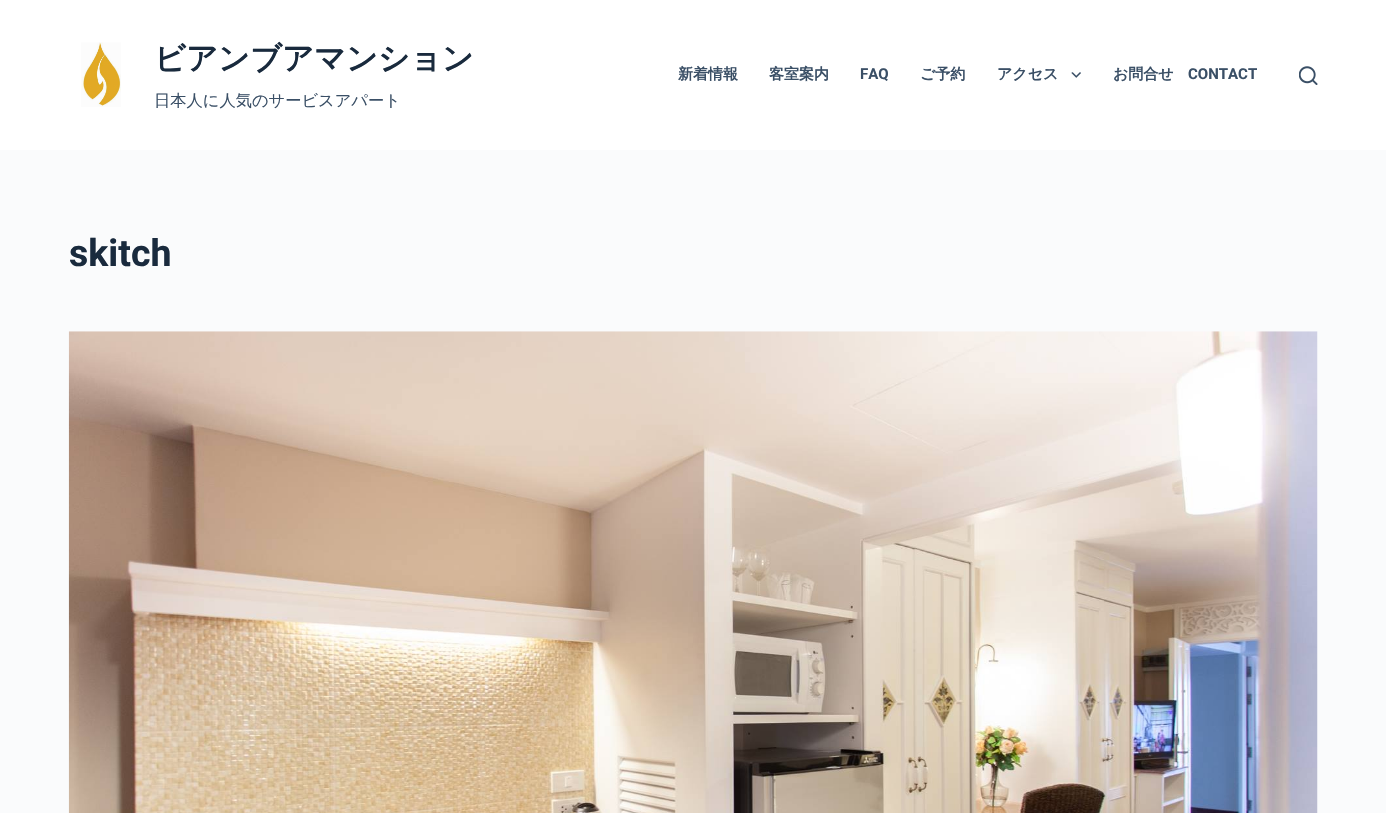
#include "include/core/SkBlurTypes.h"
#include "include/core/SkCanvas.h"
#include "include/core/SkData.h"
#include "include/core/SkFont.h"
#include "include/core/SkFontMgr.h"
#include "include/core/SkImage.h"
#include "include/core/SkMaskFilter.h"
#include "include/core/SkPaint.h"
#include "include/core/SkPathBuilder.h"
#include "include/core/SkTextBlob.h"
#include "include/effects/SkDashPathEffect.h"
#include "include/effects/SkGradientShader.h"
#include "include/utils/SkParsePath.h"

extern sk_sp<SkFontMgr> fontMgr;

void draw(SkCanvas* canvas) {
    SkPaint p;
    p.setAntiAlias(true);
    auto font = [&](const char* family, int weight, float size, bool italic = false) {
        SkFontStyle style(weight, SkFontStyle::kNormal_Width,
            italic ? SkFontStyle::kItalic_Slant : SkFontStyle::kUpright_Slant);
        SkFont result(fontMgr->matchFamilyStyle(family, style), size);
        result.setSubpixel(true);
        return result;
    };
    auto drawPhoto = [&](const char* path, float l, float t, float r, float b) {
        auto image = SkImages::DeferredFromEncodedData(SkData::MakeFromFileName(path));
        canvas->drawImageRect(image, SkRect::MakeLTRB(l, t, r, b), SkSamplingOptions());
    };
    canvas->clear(0xFFFAFBFC);
    p.setColor(0xFFFFFFFF);
    canvas->drawRect(SkRect::MakeLTRB(0, 0, 1386, 150), p);
    drawPhoto("media/1.png", 81, 42, 121, 107);
    auto font1 = font("WenQuanYi Zen Hei", 700, 31.25f);
    p.setColor(0xFF192A3D);
    canvas->drawString("ビアンブアマンション", 154, 69, font1, p);
    auto font2 = font("WenQuanYi Zen Hei", 500, 16.25f);
    p.setColor(0xFF3A4F66);
    canvas->drawString("日本人に人気のサービスアパート", 154, 106, font2, p);
    auto font3 = font("WenQuanYi Zen Hei", 700, 15);
    canvas->drawString("新着情報", 678, 79, font3, p);
    canvas->drawString("客室案内", 769, 79, font3, p);
    auto font4 = font("Roboto", 700, 15);
    canvas->drawString("FAQ", 860, 79, font4, p);
    canvas->drawString("ご予約", 920, 79, font3, p);
    canvas->drawString("アクセス", 997, 79, font3, p);
    drawPhoto("media/2.png", 1071, 72, 1081, 78);
    canvas->drawString("お問合せ", 1113, 79, font3, p);
    canvas->drawString("CONTACT", 1188, 79, font4, p);
    drawPhoto("media/3.png", 1299, 66, 1318, 85);
    auto font5 = font("Roboto", 700, 37.5f);
    p.setColor(0xFF192A3D);
    canvas->drawString("skitch", 69, 266, font5, p);
    drawPhoto("media/4.png", 68, 331, 1318, 813);
}
